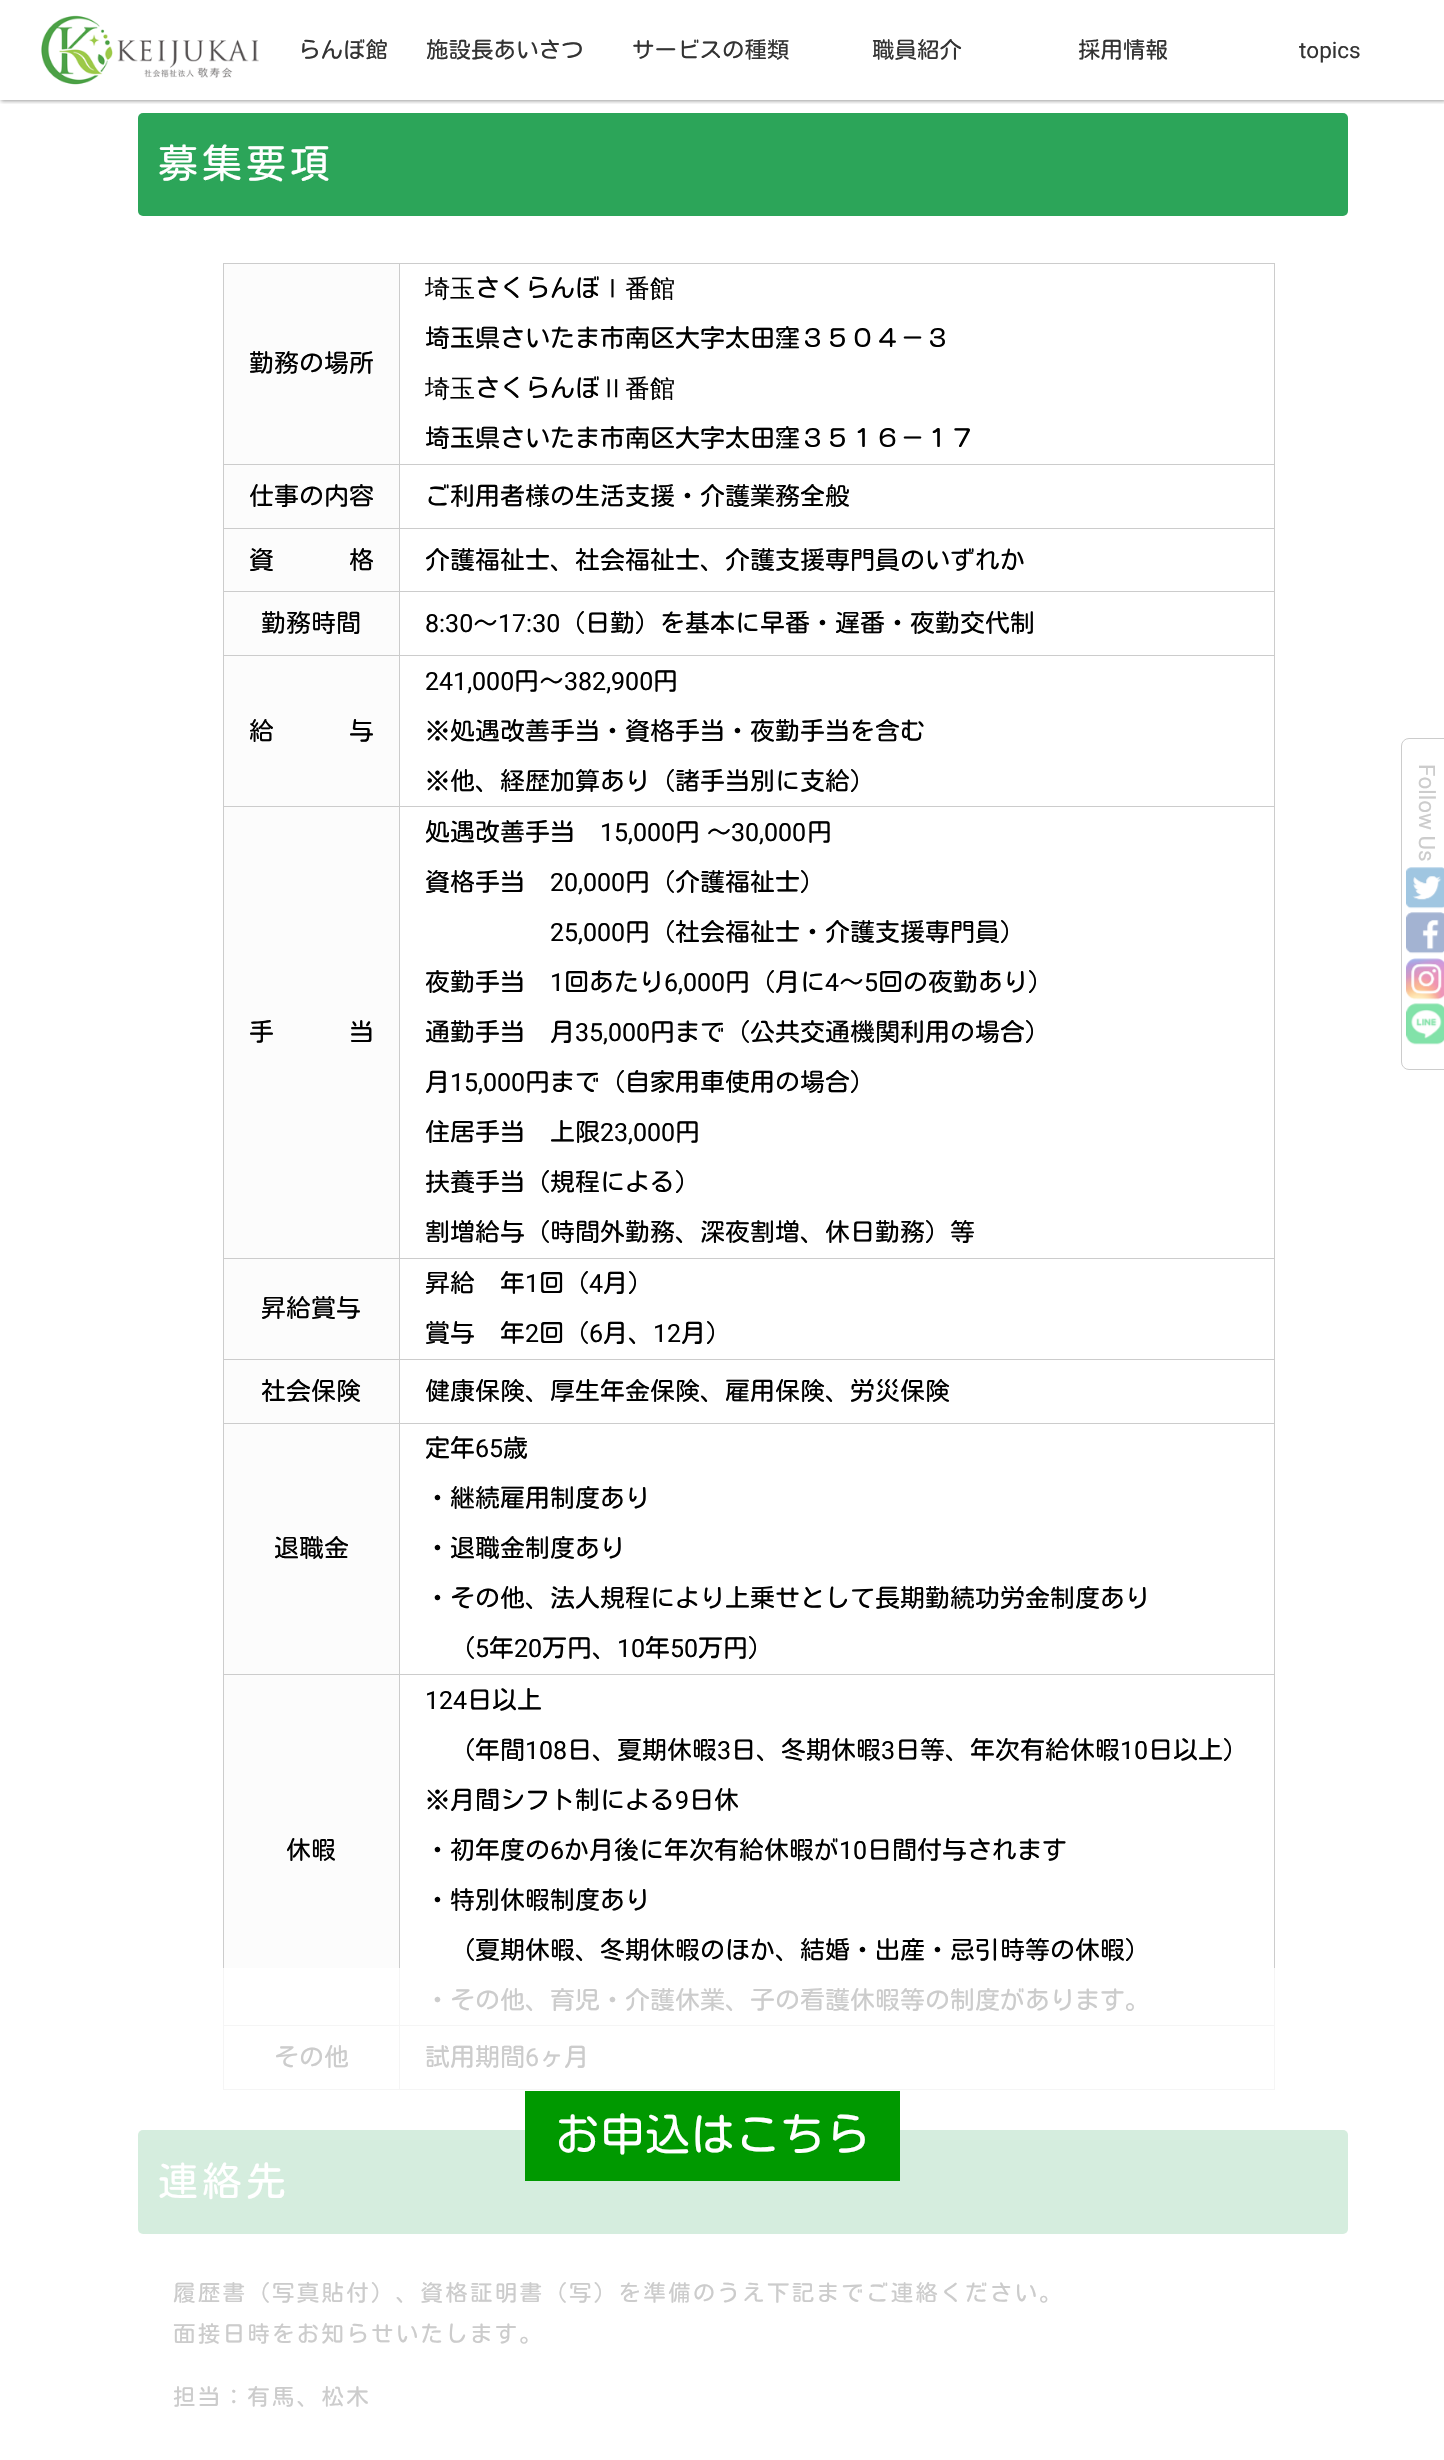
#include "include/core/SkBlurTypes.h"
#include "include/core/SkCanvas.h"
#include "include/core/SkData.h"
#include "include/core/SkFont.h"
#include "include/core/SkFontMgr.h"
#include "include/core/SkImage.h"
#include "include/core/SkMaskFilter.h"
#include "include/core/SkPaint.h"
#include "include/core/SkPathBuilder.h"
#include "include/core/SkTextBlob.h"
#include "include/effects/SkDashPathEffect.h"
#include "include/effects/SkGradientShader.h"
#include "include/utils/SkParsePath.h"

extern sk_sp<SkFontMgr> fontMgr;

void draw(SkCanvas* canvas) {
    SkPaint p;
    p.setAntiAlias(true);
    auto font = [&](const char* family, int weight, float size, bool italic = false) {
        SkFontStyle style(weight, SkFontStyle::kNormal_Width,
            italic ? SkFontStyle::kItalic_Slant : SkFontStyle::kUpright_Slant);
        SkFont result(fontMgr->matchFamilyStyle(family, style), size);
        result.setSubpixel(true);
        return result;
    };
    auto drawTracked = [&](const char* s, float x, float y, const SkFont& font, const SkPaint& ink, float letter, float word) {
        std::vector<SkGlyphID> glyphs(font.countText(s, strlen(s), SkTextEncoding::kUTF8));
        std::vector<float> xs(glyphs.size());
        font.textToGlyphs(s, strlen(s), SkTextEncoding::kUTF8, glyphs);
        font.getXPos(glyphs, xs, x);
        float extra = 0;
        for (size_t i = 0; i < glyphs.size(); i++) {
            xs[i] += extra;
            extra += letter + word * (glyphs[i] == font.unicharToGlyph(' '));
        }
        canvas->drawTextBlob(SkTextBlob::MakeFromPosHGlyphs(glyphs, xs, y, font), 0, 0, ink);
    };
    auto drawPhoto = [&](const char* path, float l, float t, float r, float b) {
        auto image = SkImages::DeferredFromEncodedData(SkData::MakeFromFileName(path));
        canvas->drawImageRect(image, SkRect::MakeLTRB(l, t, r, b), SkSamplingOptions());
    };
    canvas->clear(0xFFFFFFFF);
    canvas->save();
    canvas->clipRect(SkRect::MakeLTRB(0, 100, 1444, 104));
    p.setColor(0x66000000);
    p.setMaskFilter(SkMaskFilter::MakeBlur(kNormal_SkBlurStyle, 2));
    canvas->drawRect(SkRect::MakeLTRB(1, 1, 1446, 101), p);
    p.setMaskFilter(nullptr);
    canvas->restore();
    drawPhoto("media/1.png", 41, 15, 259, 85);
    auto font1 = font("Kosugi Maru", 400, 22.5f);
    p.setColor(0xFF333333);
    {
        const struct { const char* s; float x, y; } items[] = {
            {"らんぼ館", 298, 58},
            {"施設長あいさつ", 426, 58},
            {"サービスの種類", 632, 58},
            {"職員紹介", 872, 58},
            {"採用情報", 1078, 58},
        };
        for (auto [s, x, y] : items) {
            canvas->drawString(s, x, y, font1, p);
        }
    }
    auto font2 = font("Roboto", 400, 22.5f);
    canvas->drawString("topics", 1299, 58, font2, p);
    p.setColor(0xFF2CA559);
    canvas->drawRoundRect(SkRect::MakeLTRB(138, 113, 1348, 216), 5, 5, p);
    auto font3 = font("Kosugi Maru", 400, 40);
    p.setColor(0xFFFFFFFF);
    drawTracked("募集要項", 158, 178, font3, p, 4, 0);
    {
        const struct { float l, t, r, b; SkColor color; } items[] = {
            {223, 263, 1275, 264, 0xFFCCCCCC},
            {1274, 263, 1275, 1968, 0xFFCCCCCC},
            {1274, 1968, 1275, 2090, 0xFFF5F5F5},
            {223, 2089, 1275, 2090, 0xFFF5F5F5},
            {223, 263, 224, 1968, 0xFFCCCCCC},
            {223, 1968, 224, 2090, 0xFFF5F5F5},
            {224, 264, 399, 464, 0xFFFCFCFC},
        };
        for (auto [l, t, r, b, color] : items) {
            p.setColor(color);
            canvas->drawRect(SkRect::MakeLTRB(l, t, r, b), p);
        }
    }
    auto font4 = font("Kosugi Maru", 400, 25);
    p.setColor(0xFF000000);
    canvas->drawString("勤務の場所", 249, 372, font4, p);
    {
        const struct { float l, t, r, b; SkColor color; } items[] = {
            {399, 464, 1275, 465, 0xFFCCCCCC},
            {399, 528, 1275, 529, 0xFFCCCCCC},
            {399, 591, 1275, 592, 0xFFCCCCCC},
            {399, 655, 1275, 656, 0xFFCCCCCC},
            {399, 806, 1275, 807, 0xFFCCCCCC},
            {399, 1258, 1275, 1259, 0xFFCCCCCC},
            {399, 1359, 1275, 1360, 0xFFCCCCCC},
            {399, 1423, 1275, 1424, 0xFFCCCCCC},
            {399, 1674, 1275, 1675, 0xFFCCCCCC},
            {399, 1674, 400, 1968, 0xFFCCCCCC},
            {223, 1674, 400, 1675, 0xFFCCCCCC},
            {399, 1423, 400, 1675, 0xFFCCCCCC},
            {223, 1423, 400, 1424, 0xFFCCCCCC},
            {399, 1359, 400, 1424, 0xFFCCCCCC},
            {223, 1359, 400, 1360, 0xFFCCCCCC},
            {399, 1258, 400, 1360, 0xFFCCCCCC},
            {223, 1258, 400, 1259, 0xFFCCCCCC},
            {399, 806, 400, 1259, 0xFFCCCCCC},
            {223, 806, 400, 807, 0xFFCCCCCC},
            {399, 655, 400, 808, 0xFFCCCCCC},
            {223, 655, 400, 656, 0xFFCCCCCC},
            {399, 591, 400, 656, 0xFFCCCCCC},
            {223, 591, 400, 592, 0xFFCCCCCC},
            {399, 528, 400, 593, 0xFFCCCCCC},
            {223, 528, 400, 529, 0xFFCCCCCC},
            {399, 464, 400, 529, 0xFFCCCCCC},
            {223, 464, 400, 465, 0xFFCCCCCC},
            {399, 263, 400, 465, 0xFFCCCCCC},
        };
        for (auto [l, t, r, b, color] : items) {
            p.setColor(color);
            canvas->drawRect(SkRect::MakeLTRB(l, t, r, b), p);
        }
    }
    auto font5 = font("WenQuanYi Zen Hei", 500, 25);
    p.setColor(0xFF000000);
    canvas->drawString("埼玉", 425, 297, font5, p);
    canvas->drawString("さくらんぼ", 475, 297, font4, p);
    canvas->drawString("Ⅰ番館", 600, 297, font5, p);
    canvas->drawString("埼玉県さいたま市南区大字太田窪３５０４－３", 425, 347, font4, p);
    canvas->drawString("埼玉", 425, 397, font5, p);
    canvas->drawString("さくらんぼ", 475, 397, font4, p);
    canvas->drawString("Ⅱ番館", 600, 397, font5, p);
    canvas->drawString("埼玉県さいたま市南区大字太田窪３５１６－１７", 425, 447, font4, p);
    p.setColor(0xFFFCFCFC);
    canvas->drawRect(SkRect::MakeLTRB(224, 465, 399, 528), p);
    p.setColor(0xFF000000);
    canvas->drawString("仕事の内容", 249, 505, font4, p);
    canvas->drawString("ご利用者様の生活支援・介護業務全般", 425, 505, font4, p);
    p.setColor(0xFFFCFCFC);
    canvas->drawRect(SkRect::MakeLTRB(224, 529, 399, 591), p);
    p.setColor(0xFF000000);
    canvas->drawString("資　　　格", 249, 569, font4, p);
    canvas->drawString("介護福祉士、社会福祉士、介護支援専門員のいずれか", 425, 569, font4, p);
    p.setColor(0xFFFCFCFC);
    canvas->drawRect(SkRect::MakeLTRB(224, 592, 399, 655), p);
    p.setColor(0xFF000000);
    canvas->drawString("勤務時間", 261, 632, font4, p);
    auto font6 = font("Roboto", 400, 25);
    canvas->drawString("8:30", 425, 632, font6, p);
    canvas->drawString("～", 473, 632, font4, p);
    canvas->drawString("17:30", 498, 632, font6, p);
    canvas->drawString("（日勤）を基本に早番・遅番・夜勤交代制", 560, 632, font4, p);
    p.setColor(0xFFFCFCFC);
    canvas->drawRect(SkRect::MakeLTRB(224, 656, 399, 806), p);
    p.setColor(0xFF000000);
    canvas->drawString("給　　　与", 249, 740, font4, p);
    canvas->drawString("241,000", 425, 690, font6, p);
    canvas->drawString("円～", 514, 690, font4, p);
    canvas->drawString("382,900", 564, 690, font6, p);
    {
        const struct { const char* s; float x, y; } items[] = {
            {"円", 653, 690},
            {"※処遇改善手当・資格手当・夜勤手当を含む", 425, 740},
            {"※他、経歴加算あり（諸手当別に支給）", 425, 790},
        };
        for (auto [s, x, y] : items) {
            canvas->drawString(s, x, y, font4, p);
        }
    }
    p.setColor(0xFFFCFCFC);
    canvas->drawRect(SkRect::MakeLTRB(224, 807, 399, 1258), p);
    p.setColor(0xFF000000);
    canvas->drawString("手　　　当", 249, 1041, font4, p);
    canvas->drawString("処遇改善手当", 425, 841, font4, p);
    canvas->drawString("15,000", 600, 841, font6, p);
    drawTracked("円 ～", 675, 841, font4, p, 0, -6);
    canvas->drawString("30,000", 731, 841, font6, p);
    canvas->drawString("円", 807, 841, font4, p);
    canvas->drawString("資格手当", 425, 891, font4, p);
    canvas->drawString("20,000", 550, 891, font6, p);
    canvas->drawString("円（介護福祉士）", 625, 891, font4, p);
    canvas->drawString("25,000", 550, 941, font6, p);
    canvas->drawString("円（社会福祉士・介護支援専門員）", 625, 941, font4, p);
    canvas->drawString("夜勤手当", 425, 991, font4, p);
    canvas->drawString("1", 550, 991, font6, p);
    canvas->drawString("回あたり", 564, 991, font4, p);
    canvas->drawString("6,000", 664, 991, font6, p);
    canvas->drawString("円（月に", 725, 991, font4, p);
    canvas->drawString("4", 825, 991, font6, p);
    canvas->drawString("～", 839, 991, font4, p);
    canvas->drawString("5", 864, 991, font6, p);
    canvas->drawString("回の夜勤あり）", 878, 991, font4, p);
    canvas->drawString("通勤手当　月", 425, 1041, font4, p);
    canvas->drawString("35,000", 575, 1041, font6, p);
    canvas->drawString("円まで（公共交通機関利用の場合）", 650, 1041, font4, p);
    canvas->drawString("月", 425, 1091, font4, p);
    canvas->drawString("15,000", 450, 1091, font6, p);
    canvas->drawString("円まで（自家用車使用の場合）", 525, 1091, font4, p);
    canvas->drawString("住居手当　上限", 425, 1141, font4, p);
    canvas->drawString("23,000", 600, 1141, font6, p);
    {
        const struct { const char* s; float x, y; } items[] = {
            {"円", 675, 1141},
            {"扶養手当（規程による）", 425, 1191},
            {"割増給与（時間外勤務、深夜割増、休日勤務）等", 425, 1241},
        };
        for (auto [s, x, y] : items) {
            canvas->drawString(s, x, y, font4, p);
        }
    }
    p.setColor(0xFFFCFCFC);
    canvas->drawRect(SkRect::MakeLTRB(224, 1259, 399, 1359), p);
    p.setColor(0xFF000000);
    canvas->drawString("昇給賞与", 261, 1317, font4, p);
    canvas->drawString("昇給　年", 425, 1292, font4, p);
    canvas->drawString("1", 525, 1292, font6, p);
    canvas->drawString("回（", 539, 1292, font4, p);
    canvas->drawString("4", 589, 1292, font6, p);
    canvas->drawString("月）", 603, 1292, font4, p);
    canvas->drawString("賞与　年", 425, 1342, font4, p);
    canvas->drawString("2", 525, 1342, font6, p);
    canvas->drawString("回（", 539, 1342, font4, p);
    canvas->drawString("6", 589, 1342, font6, p);
    canvas->drawString("月、", 603, 1342, font4, p);
    canvas->drawString("12", 653, 1342, font6, p);
    canvas->drawString("月）", 681, 1342, font4, p);
    p.setColor(0xFFFCFCFC);
    canvas->drawRect(SkRect::MakeLTRB(224, 1360, 399, 1423), p);
    p.setColor(0xFF000000);
    canvas->drawString("社会保険", 261, 1400, font4, p);
    canvas->drawString("健康保険、厚生年金保険、雇用保険、労災保険", 425, 1400, font4, p);
    p.setColor(0xFFFCFCFC);
    canvas->drawRect(SkRect::MakeLTRB(224, 1424, 399, 1674), p);
    p.setColor(0xFF000000);
    canvas->drawString("退職金", 274, 1557, font4, p);
    canvas->drawString("定年", 425, 1457, font4, p);
    canvas->drawString("65", 475, 1457, font6, p);
    {
        const struct { const char* s; float x, y; } items[] = {
            {"歳", 503, 1457},
            {"・継続雇用制度あり", 425, 1507},
            {"・退職金制度あり", 425, 1557},
            {"・その他、法人規程により上乗せとして長期勤続功労金制度あり", 425, 1607},
            {"（", 450, 1657},
        };
        for (auto [s, x, y] : items) {
            canvas->drawString(s, x, y, font4, p);
        }
    }
    canvas->drawString("5", 475, 1657, font6, p);
    canvas->drawString("年", 489, 1657, font4, p);
    canvas->drawString("20", 514, 1657, font6, p);
    canvas->drawString("万円、", 542, 1657, font4, p);
    canvas->drawString("10", 617, 1657, font6, p);
    canvas->drawString("年", 645, 1657, font4, p);
    canvas->drawString("50", 670, 1657, font6, p);
    canvas->drawString("万円）", 698, 1657, font4, p);
    p.setColor(0xFFFCFCFC);
    canvas->drawRect(SkRect::MakeLTRB(224, 1675, 399, 1968), p);
    p.setColor(0xFF000000);
    canvas->drawString("休暇", 286, 1859, font4, p);
    {
        const struct { float l, t, r, b; SkColor color; } items[] = {
            {399, 2025, 1275, 2026, 0xFFF5F5F5},
            {399, 2025, 400, 2090, 0xFFF5F5F5},
            {223, 2025, 400, 2026, 0xFFF5F5F5},
            {399, 1968, 400, 2026, 0xFFF5F5F5},
        };
        for (auto [l, t, r, b, color] : items) {
            p.setColor(color);
            canvas->drawRect(SkRect::MakeLTRB(l, t, r, b), p);
        }
    }
    p.setColor(0xFF000000);
    canvas->drawString("124", 425, 1709, font6, p);
    canvas->drawString("日以上", 467, 1709, font4, p);
    canvas->drawString("（年間", 450, 1759, font4, p);
    canvas->drawString("108", 525, 1759, font6, p);
    canvas->drawString("日、夏期休暇", 567, 1759, font4, p);
    canvas->drawString("3", 717, 1759, font6, p);
    canvas->drawString("日、冬期休暇", 731, 1759, font4, p);
    canvas->drawString("3", 881, 1759, font6, p);
    canvas->drawString("日等、年次有給休暇", 895, 1759, font4, p);
    canvas->drawString("10", 1120, 1759, font6, p);
    canvas->drawString("日以上）", 1148, 1759, font4, p);
    canvas->drawString("※月間シフト制による", 425, 1809, font4, p);
    canvas->drawString("9", 675, 1809, font6, p);
    canvas->drawString("日休", 689, 1809, font4, p);
    canvas->drawString("・初年度の", 425, 1859, font4, p);
    canvas->drawString("6", 550, 1859, font6, p);
    canvas->drawString("か月後に年次有給休暇が", 564, 1859, font4, p);
    canvas->drawString("10", 839, 1859, font6, p);
    {
        const struct { const char* s; float x, y; } items[] = {
            {"日間付与されます", 867, 1859},
            {"・特別休暇制度あり", 425, 1909},
            {"（夏期休暇、冬期休暇のほか、結婚・出産・忌引時等の休暇）", 450, 1959},
        };
        for (auto [s, x, y] : items) {
            canvas->drawString(s, x, y, font4, p);
        }
    }
    p.setColor(0xFFCCCCCC);
    {
        const struct { const char* s; float x, y; } items[] = {
            {"・その他、育児・介護休業、子の看護休暇等の制度があります。", 425, 2009},
            {"その他", 274, 2066},
            {"試用期間", 425, 2066},
        };
        for (auto [s, x, y] : items) {
            canvas->drawString(s, x, y, font4, p);
        }
    }
    canvas->drawString("6", 525, 2066, font6, p);
    canvas->drawString("ヶ月", 539, 2066, font4, p);
    p.setColor(0xFFD5EDDE);
    canvas->drawRoundRect(SkRect::MakeLTRB(138, 2130, 1348, 2234), 5, 5, p);
    p.setColor(0xFFFFFFFF);
    drawTracked("連絡先", 158, 2196, font3, p, 4, 0);
    p.setColor(0xFFCCCCCC);
    {
        const struct { const char* s; float x, y; } items[] = {
            {"履歴書（写真貼付）、資格証明書（写）を準備のうえ下記までご連絡ください。", 173, 2301},
            {"面接日時をお知らせいたします。", 173, 2342},
            {"担当：有馬、松木", 173, 2405},
        };
        for (auto [s, x, y] : items) {
            drawTracked(s, x, y, font1, p, 2.25f, 0);
        }
    }
    p.setStyle(SkPaint::kStroke_Style);
    p.setStrokeWidth(1);
    canvas->drawRoundRect(SkRect::MakeLTRB(1401.5f, 738.5f, 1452.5f, 1069.5f), 7.5f, 7.5f, p);
    p.setStyle(SkPaint::kFill_Style);
    canvas->save();
    canvas->rotate(90, 1419, 764);
    canvas->drawString("Follow Us", 1419, 764, font2, p);
    canvas->restore();
    drawPhoto("media/2.png", 1406, 867, 1444, 909);
    drawPhoto("media/3.png", 1406, 912, 1444, 954);
    drawPhoto("media/4.png", 1406, 958, 1444, 1000);
    drawPhoto("media/5.png", 1406, 1003, 1444, 1045);
    p.setColor(0xFF009900);
    canvas->drawRect(SkRect::MakeLTRB(525, 2091, 900, 2181), p);
    auto font7 = font("Kosugi Maru", 400, 45);
    p.setColor(0xFFFFFFFF);
    canvas->drawString("お申込はこちら", 555, 2151, font7, p);
}
